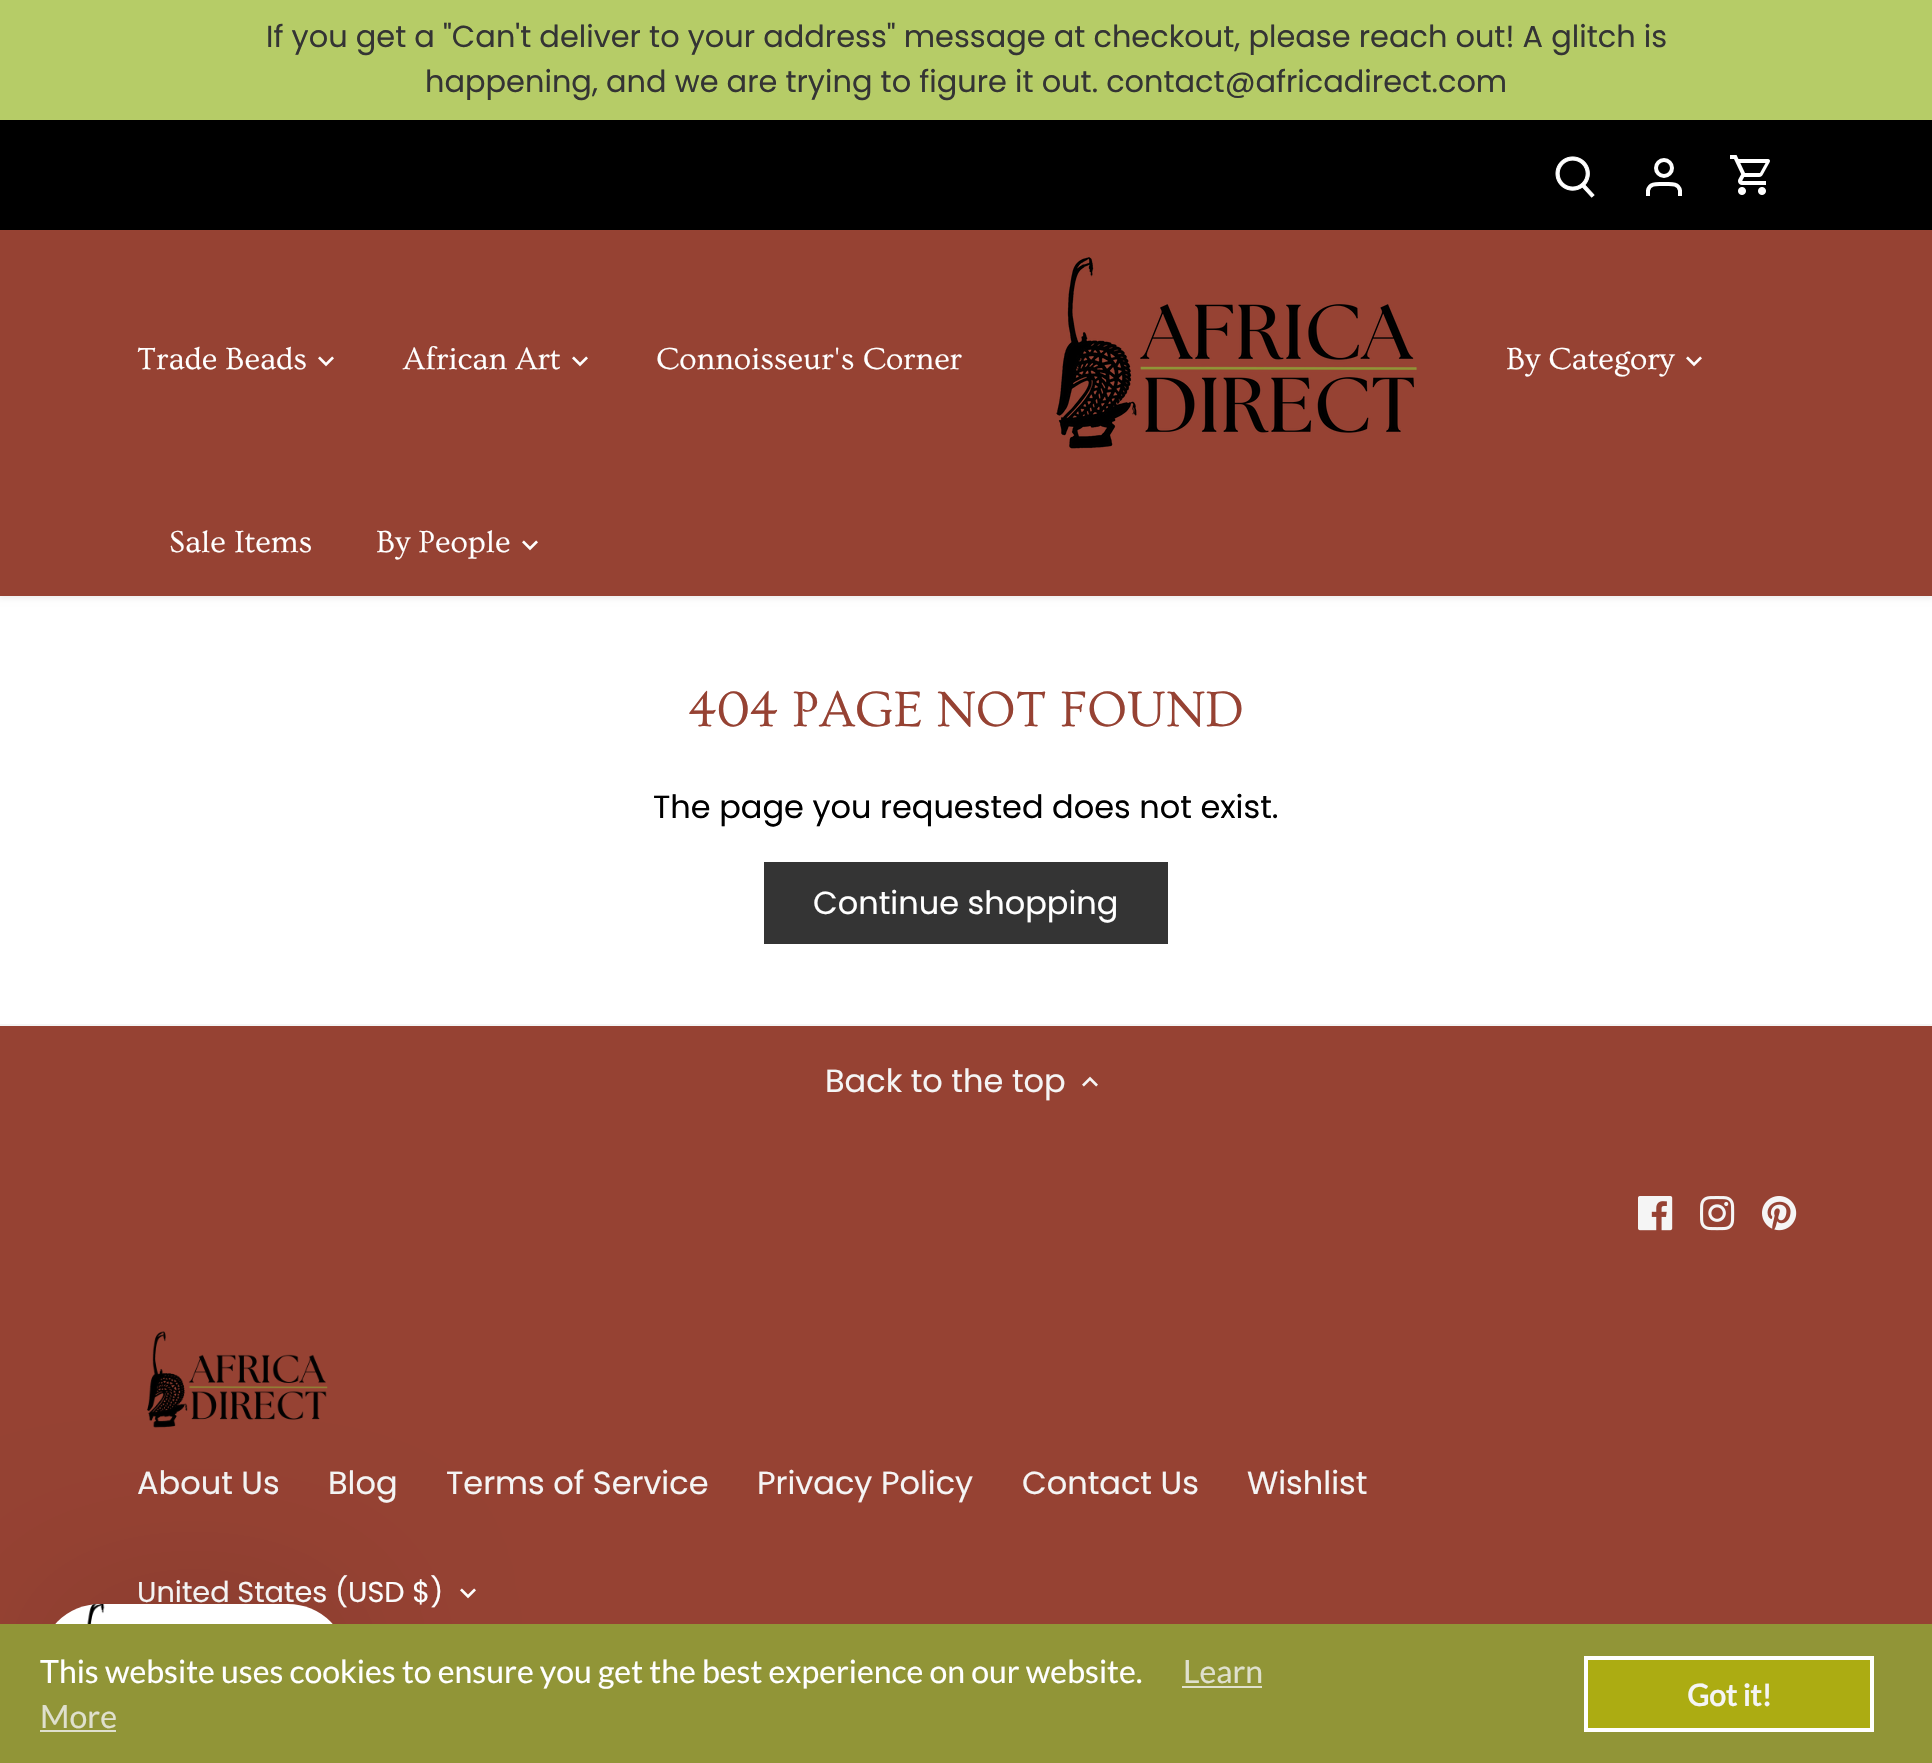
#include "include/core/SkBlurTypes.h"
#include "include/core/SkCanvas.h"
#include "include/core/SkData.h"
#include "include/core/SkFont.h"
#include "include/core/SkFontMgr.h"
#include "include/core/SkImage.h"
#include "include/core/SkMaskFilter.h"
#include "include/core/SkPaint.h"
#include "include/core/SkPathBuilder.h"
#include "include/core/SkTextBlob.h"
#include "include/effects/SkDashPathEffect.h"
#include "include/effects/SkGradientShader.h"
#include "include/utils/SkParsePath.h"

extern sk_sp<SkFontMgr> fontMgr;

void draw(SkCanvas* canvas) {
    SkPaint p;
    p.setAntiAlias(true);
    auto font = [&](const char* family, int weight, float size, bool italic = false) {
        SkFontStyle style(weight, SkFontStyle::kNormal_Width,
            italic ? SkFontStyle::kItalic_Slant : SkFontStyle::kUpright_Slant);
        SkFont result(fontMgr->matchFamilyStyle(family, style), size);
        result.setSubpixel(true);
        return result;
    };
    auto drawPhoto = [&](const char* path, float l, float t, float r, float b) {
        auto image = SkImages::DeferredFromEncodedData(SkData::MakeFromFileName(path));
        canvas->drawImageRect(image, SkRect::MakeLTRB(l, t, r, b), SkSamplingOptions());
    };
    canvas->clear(0xFF964233);
    p.setColor(0xFFFFFFFF);
    canvas->drawRect(SkRect::MakeLTRB(0, 596, 1932, 1024), p);
    p.setColor(0x14000000);
    p.setMaskFilter(SkMaskFilter::MakeBlur(kNormal_SkBlurStyle, 3));
    canvas->drawRect(SkRect::MakeLTRB(-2, 118, 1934, 598), p);
    p.setMaskFilter(nullptr);
    p.setColor(0xFFB6CC67);
    canvas->drawRect(SkRect::MakeLTRB(0, 0, 1932, 120), p);
    auto font1 = font("Poppins", 400, 30.4f);
    p.setColor(0xFF343434);
    canvas->drawString("If you get a \"Can't deliver to your address\" message at checkout, please reach out! A glitch is", 266, 47, font1, p);
    canvas->drawString("happening, and we are trying to figure it out. contact@africadirect.com", 425, 92, font1, p);
    p.setColor(0xFF964233);
    canvas->drawRect(SkRect::MakeLTRB(0, 230, 1932, 596), p);
    p.setColor(0xFF000000);
    canvas->drawRect(SkRect::MakeLTRB(0, 120, 1932, 230), p);
    drawPhoto("media/1.png", 1555, 156, 1595, 198);
    p.setStyle(SkPaint::kStroke_Style);
    p.setStrokeWidth(4);
    p.setColor(0xFFFFFFFF);
    canvas->drawCircle(1664, 168, 8, p);
    canvas->drawPath(SkPathBuilder().moveTo(1680, 196).lineTo(1680, 190.5f).cubicTo(1678.5f, 182.5f, 1670, 184, 1664, 184).cubicTo(1658, 184, 1649.5f, 182.5f, 1648, 190.5f).lineTo(1648, 196).detach(), p);
    drawPhoto("media/2.png", 1730, 155, 1770, 195);
    auto font2 = font("Ovo", 400, 32);
    p.setStyle(SkPaint::kFill_Style);
    canvas->drawString("Trade Beads", 137, 369, font2, p);
    drawPhoto("media/3.png", 318, 356, 334, 367);
    canvas->drawString("African Art", 403, 369, font2, p);
    drawPhoto("media/3.png", 572, 356, 588, 367);
    canvas->drawString("Connoisseur's Corner", 656, 369, font2, p);
    drawPhoto("media/4.png", 1056, 257, 1417, 449);
    canvas->drawString("By Category", 1506, 369, font2, p);
    drawPhoto("media/3.png", 1686, 356, 1702, 367);
    canvas->drawString("Sale Items", 169, 552, font2, p);
    canvas->drawString("By People", 376, 552, font2, p);
    drawPhoto("media/3.png", 522, 540, 538, 551);
    auto font3 = font("Ovo", 400, 52);
    p.setColor(0xFF964233);
    canvas->drawString("404 PAGE NOT FOUND", 688, 726, font3, p);
    auto font4 = font("Poppins", 400, 32);
    p.setColor(0xFF000000);
    canvas->drawString("The page you requested does not exist.", 653, 818, font4, p);
    p.setColor(0xFF343434);
    canvas->drawRect(SkRect::MakeLTRB(764, 862, 1168, 944), p);
    p.setColor(0xFFFFFFFF);
    canvas->drawString("Continue shopping", 813, 914, font4, p);
    p.setColor(0xFFF5F5F5);
    canvas->drawRect(SkRect::MakeLTRB(0, 1024, 1932, 1026), p);
    canvas->drawString("Back to the top", 825, 1092, font4, p);
    drawPhoto("media/5.png", 1082, 1076, 1098, 1087);
    drawPhoto("media/6.png", 1638, 1196, 1673, 1231);
    drawPhoto("media/7.png", 1700, 1196, 1735, 1231);
    drawPhoto("media/8.png", 1762, 1196, 1797, 1231);
    drawPhoto("media/9.png", 147, 1331, 328, 1428);
    {
        const struct { const char* s; float x, y; } items[] = {
            {"About Us", 137, 1494},
            {"Blog", 328, 1494},
            {"Terms of Service", 446, 1494},
            {"Privacy Policy", 757, 1494},
            {"Contact Us", 1022, 1494},
            {"Wishlist", 1247, 1494},
        };
        for (auto [s, x, y] : items) {
            canvas->drawString(s, x, y, font4, p);
        }
    }
    auto font5 = font("Poppins", 400, 28.75f);
    p.setColor(0xFFFFFFFF);
    canvas->drawString("United States (USD $)", 137, 1602, font5, p);
    drawPhoto("media/3.png", 460, 1588, 476, 1599);
    p.setColor(0x1F000000);
    p.setMaskFilter(SkMaskFilter::MakeBlur(kNormal_SkBlurStyle, 80));
    canvas->drawRoundRect(SkRect::MakeLTRB(40, 1604, 348, 1724), 60, 60, p);
    p.setMaskFilter(nullptr);
    p.setColor(0xFFFFFFFF);
    canvas->drawRoundRect(SkRect::MakeLTRB(40, 1604, 348, 1724), 60, 60, p);
    drawPhoto("media/10.png", 87, 1604, 105, 1624);
    p.setColor(0xFF919537);
    canvas->drawRect(SkRect::MakeLTRB(0, 1624, 1932, 1763), p);
    auto font6 = font("Lato", 400, 32);
    p.setColor(0xFFFFFFFF);
    canvas->drawString("This website uses cookies to ensure you get the best experience on our website.", 40, 1683, font6, p);
    p.setColor(0xFFDFE0CD);
    canvas->drawString("Learn", 1183, 1683, font6, p);
    canvas->drawRect(SkRect::MakeLTRB(1182, 1686, 1262, 1688), p);
    canvas->drawString("More", 40, 1728, font6, p);
    canvas->drawRect(SkRect::MakeLTRB(40, 1730, 116, 1732), p);
    p.setColor(0xFFACAC12);
    canvas->drawRect(SkRect::MakeLTRB(1586, 1658, 1872, 1730), p);
    p.setStyle(SkPaint::kStroke_Style);
    p.setColor(0xFFFFFFFF);
    canvas->drawRect(SkRect::MakeLTRB(1586, 1658, 1872, 1730), p);
    auto font7 = font("Lato", 700, 30);
    p.setStyle(SkPaint::kFill_Style);
    p.setColor(0xFFF5F5F5);
    canvas->drawString("Got it!", 1687, 1706, font7, p);
}
